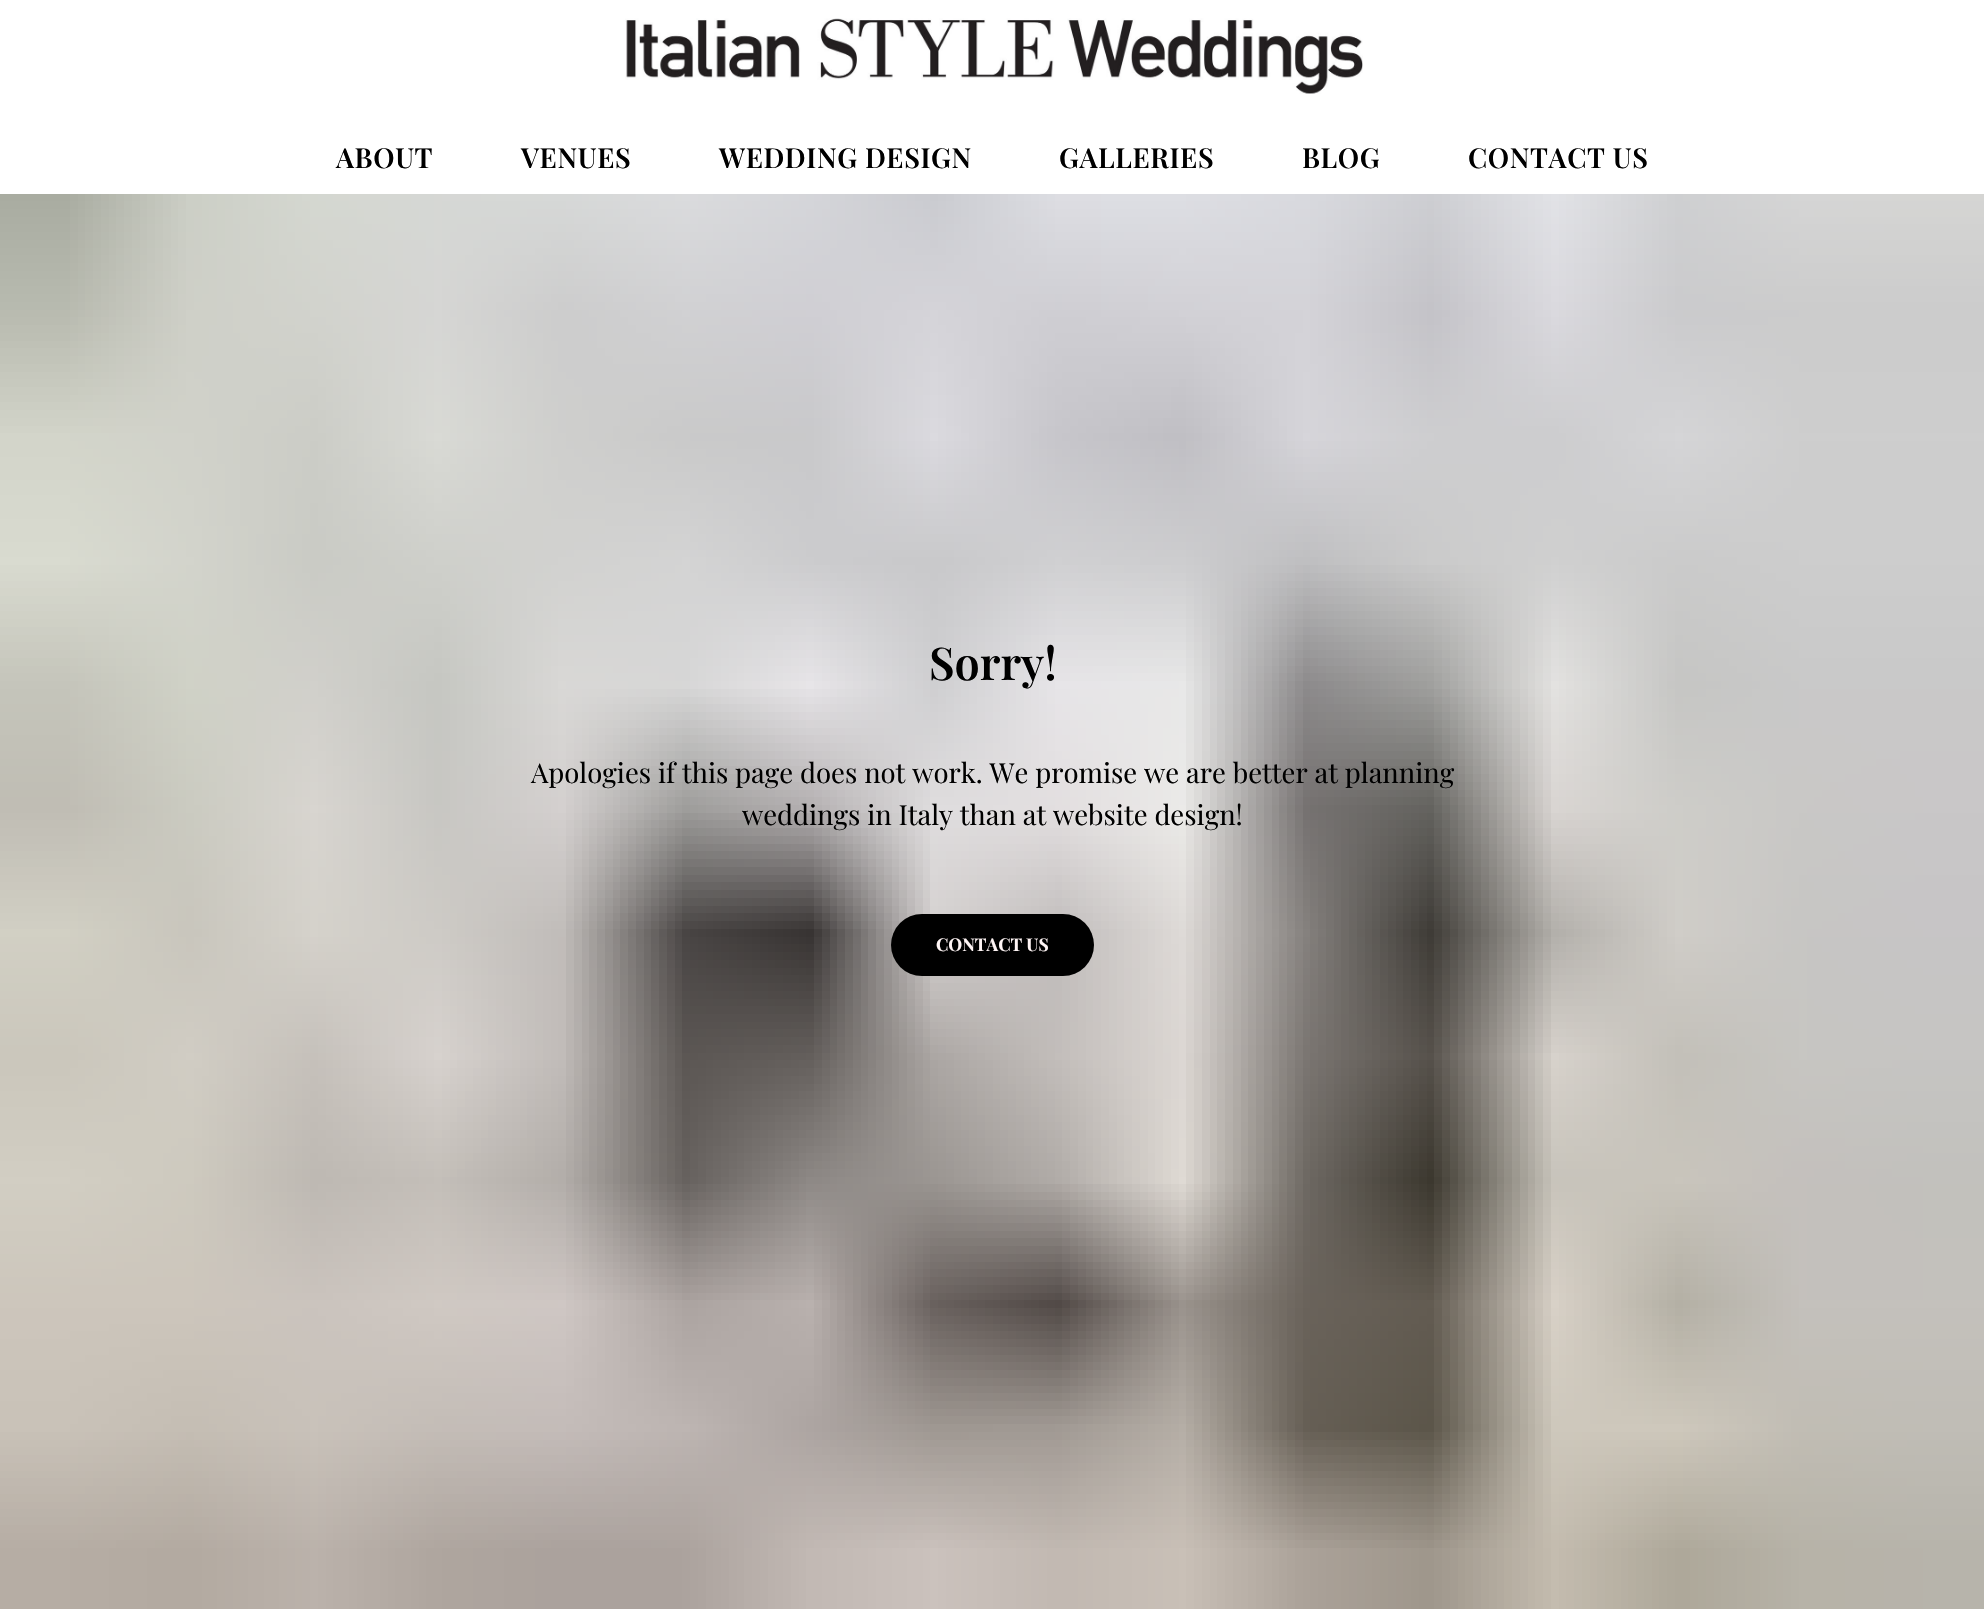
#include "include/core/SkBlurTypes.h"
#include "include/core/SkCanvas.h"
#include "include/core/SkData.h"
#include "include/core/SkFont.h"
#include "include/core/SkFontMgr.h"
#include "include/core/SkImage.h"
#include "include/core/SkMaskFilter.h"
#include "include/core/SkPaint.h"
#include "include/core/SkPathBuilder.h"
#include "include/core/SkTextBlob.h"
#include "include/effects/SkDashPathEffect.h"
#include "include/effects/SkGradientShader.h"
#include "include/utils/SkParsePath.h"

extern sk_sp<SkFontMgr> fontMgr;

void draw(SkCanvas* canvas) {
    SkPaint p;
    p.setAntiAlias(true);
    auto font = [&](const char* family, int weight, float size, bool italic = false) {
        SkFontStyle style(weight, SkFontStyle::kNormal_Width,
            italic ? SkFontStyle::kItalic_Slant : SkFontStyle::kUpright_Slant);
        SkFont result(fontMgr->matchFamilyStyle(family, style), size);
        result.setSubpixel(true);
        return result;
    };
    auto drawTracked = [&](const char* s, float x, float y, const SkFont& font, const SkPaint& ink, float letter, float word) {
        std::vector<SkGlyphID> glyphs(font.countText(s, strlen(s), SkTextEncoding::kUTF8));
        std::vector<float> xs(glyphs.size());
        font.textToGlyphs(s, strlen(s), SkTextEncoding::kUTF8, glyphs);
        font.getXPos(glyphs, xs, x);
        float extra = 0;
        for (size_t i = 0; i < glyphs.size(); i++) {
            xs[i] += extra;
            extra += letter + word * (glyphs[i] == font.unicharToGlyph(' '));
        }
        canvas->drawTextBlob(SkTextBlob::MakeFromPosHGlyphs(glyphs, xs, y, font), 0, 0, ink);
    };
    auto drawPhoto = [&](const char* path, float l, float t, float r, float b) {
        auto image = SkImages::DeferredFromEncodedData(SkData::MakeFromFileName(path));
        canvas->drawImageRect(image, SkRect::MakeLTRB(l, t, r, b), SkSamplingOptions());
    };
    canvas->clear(0xFFFFFFFF);
    drawPhoto("media/1.png", 625, 18, 1363, 94);
    auto font1 = font("Playfair Display", 600, 27.5f);
    p.setColor(0xFF000000);
    {
        const struct { const char* s; float x, y; } items[] = {
            {"ABOUT", 336, 168},
            {"VENUES", 521, 168},
            {"WEDDING DESIGN", 719, 168},
            {"GALLERIES", 1059, 168},
            {"BLOG", 1302, 168},
            {"CONTACT US", 1468, 168},
        };
        for (auto [s, x, y] : items) {
            drawTracked(s, x, y, font1, p, 0.6f, 0);
        }
    }
    drawPhoto("media/2.png", 0, 194, 1984, 1609);
    auto font2 = font("Playfair Display", 600, 45);
    canvas->drawString("Sorry!", 929, 680, font2, p);
    auto font3 = font("Playfair Display", 400, 27.5f);
    canvas->drawString("Apologies if this page does not work. We promise we are better at planning", 531, 783, font3, p);
    canvas->drawString("weddings in Italy than at website design!", 742, 825, font3, p);
    canvas->drawRoundRect(SkRect::MakeLTRB(891, 914, 1094, 976), 31, 31, p);
    auto font4 = font("Playfair Display", 700, 17.5f);
    p.setColor(0xFFFFF5F5);
    canvas->drawString("CONTACT US", 936, 951, font4, p);
}
